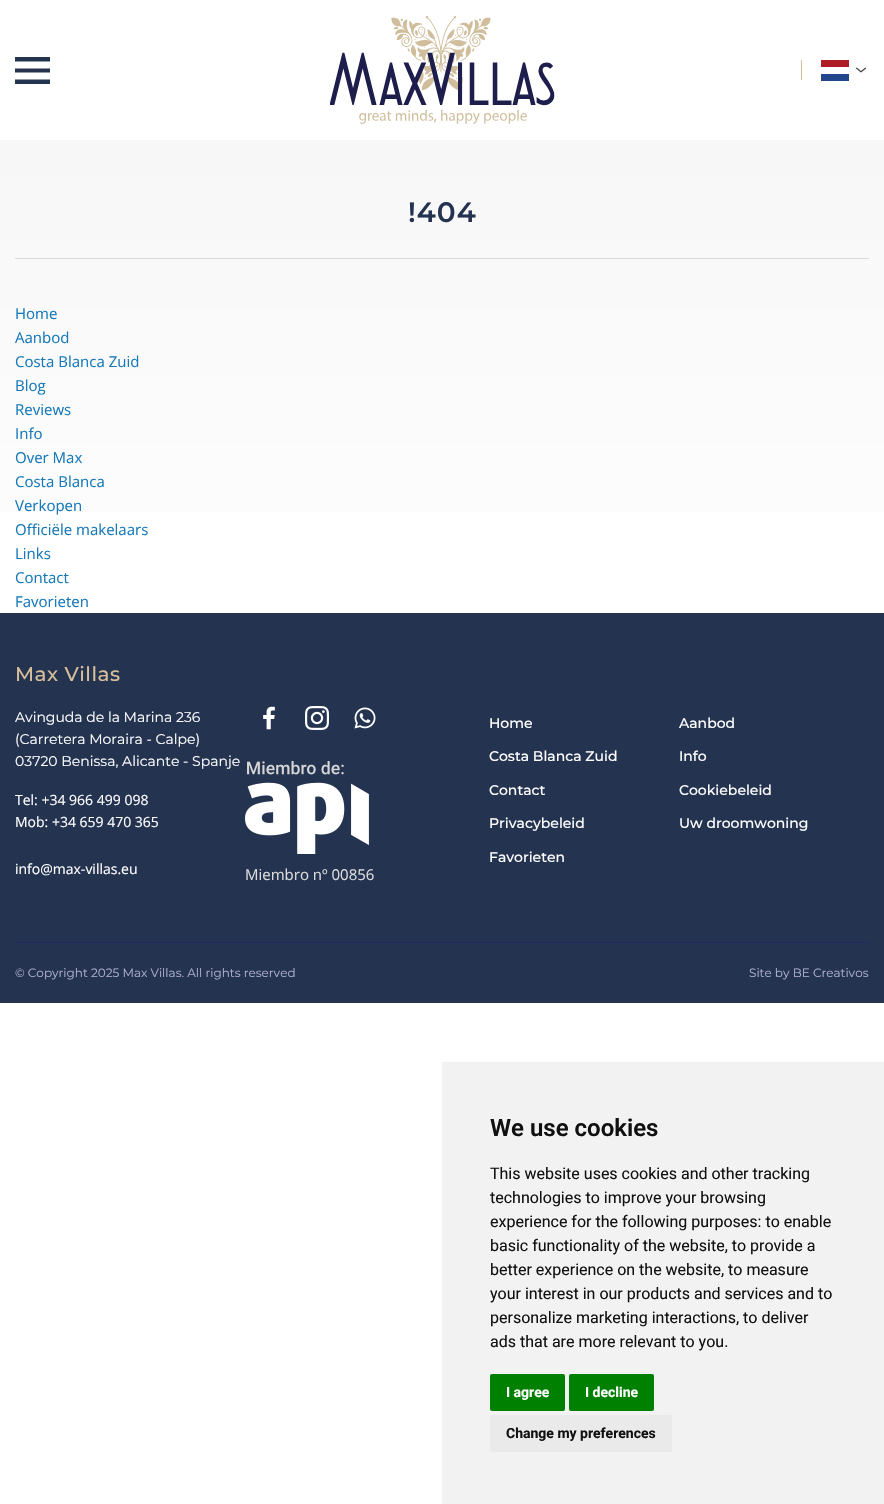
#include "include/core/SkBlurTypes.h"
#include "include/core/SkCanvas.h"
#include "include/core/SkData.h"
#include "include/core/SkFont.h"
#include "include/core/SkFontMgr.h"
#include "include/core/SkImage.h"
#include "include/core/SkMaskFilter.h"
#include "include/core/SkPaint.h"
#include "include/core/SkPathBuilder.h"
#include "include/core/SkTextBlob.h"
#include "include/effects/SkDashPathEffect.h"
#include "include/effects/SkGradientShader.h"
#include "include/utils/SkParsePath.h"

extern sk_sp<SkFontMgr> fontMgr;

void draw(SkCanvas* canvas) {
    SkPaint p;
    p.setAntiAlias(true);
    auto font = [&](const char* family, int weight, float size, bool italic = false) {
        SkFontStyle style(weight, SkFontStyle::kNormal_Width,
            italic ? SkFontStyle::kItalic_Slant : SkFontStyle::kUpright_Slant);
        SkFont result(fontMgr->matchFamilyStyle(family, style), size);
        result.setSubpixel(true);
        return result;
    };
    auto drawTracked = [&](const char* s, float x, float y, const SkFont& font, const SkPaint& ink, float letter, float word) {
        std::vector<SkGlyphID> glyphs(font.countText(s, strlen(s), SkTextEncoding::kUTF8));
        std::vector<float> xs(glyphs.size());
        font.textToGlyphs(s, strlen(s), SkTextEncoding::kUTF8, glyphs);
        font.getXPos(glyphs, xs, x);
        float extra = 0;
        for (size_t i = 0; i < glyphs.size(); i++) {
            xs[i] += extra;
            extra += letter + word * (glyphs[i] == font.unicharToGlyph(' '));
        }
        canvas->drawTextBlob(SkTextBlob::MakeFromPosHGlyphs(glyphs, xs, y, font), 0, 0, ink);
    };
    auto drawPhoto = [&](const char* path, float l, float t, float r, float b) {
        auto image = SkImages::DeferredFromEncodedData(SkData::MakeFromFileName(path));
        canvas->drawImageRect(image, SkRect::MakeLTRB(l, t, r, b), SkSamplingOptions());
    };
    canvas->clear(0xFFFFFFFF);
    p.setColor(0xFF243350);
    canvas->drawPath(SkPathBuilder().moveTo(15, 57).lineTo(15, 61.5f).lineTo(50, 61.5f).lineTo(50, 57).close().moveTo(15, 68.5f).lineTo(15, 72.5f).lineTo(50, 72.5f).lineTo(50, 68.5f).close().moveTo(15, 79.5f).lineTo(15, 84).lineTo(50, 84).lineTo(50, 79.5f).close().detach(), p);
    drawPhoto("media/1.png", 330, 16, 555, 124);
    {
        const struct { float l, t, r, b; SkColor color; } items[] = {
            {801, 60, 802, 80, 0xFFD6BE9A},
            {821, 74, 849, 81, 0xFF21468B},
            {821, 60, 849, 67, 0xFFAE1C28},
        };
        for (auto [l, t, r, b, color] : items) {
            p.setColor(color);
            canvas->drawRect(SkRect::MakeLTRB(l, t, r, b), p);
        }
    }
    drawPhoto("media/2.png", 856, 67, 866, 73);
    {
        const SkColor colors[] = {0xFFF7F7F7, 0xFFFEFEFE};
        const float stops[] = {0, 1};
        const SkPoint ends[] = {{442, 140}, {442, 613}};
        p.setShader(SkGradientShader::MakeLinear(ends, colors, stops, 2, SkTileMode::kClamp));
        p.setAlpha(255);
    }
    canvas->drawRect(SkRect::MakeLTRB(0, 140, 884, 512), p);
    p.setShader(nullptr);
    p.setColor(0xFFDADADA);
    canvas->drawRect(SkRect::MakeLTRB(15, 258, 869, 259), p);
    auto font1 = font("Montserrat", 600, 28);
    p.setColor(0xFF243350);
    drawTracked("!404", 408, 222, font1, p, 1, 0);
    auto font2 = font("Open Sans", 400, 15);
    p.setColor(0xFF1779BA);
    {
        const struct { const char* s; float x, y; } items[] = {
            {"Home", 15, 319},
            {"Aanbod", 15, 343},
            {"Costa Blanca Zuid", 15, 367},
            {"Blog", 15, 391},
            {"Reviews", 15, 415},
            {"Info", 15, 439},
            {"Over Max", 15, 463},
            {"Costa Blanca", 15, 487},
            {"Verkopen", 15, 511},
            {"Officiële makelaars", 15, 535},
            {"Links", 15, 559},
            {"Contact", 15, 583},
            {"Favorieten", 15, 607},
        };
        for (auto [s, x, y] : items) {
            canvas->drawString(s, x, y, font2, p);
        }
    }
    p.setColor(0xFF243350);
    canvas->drawRect(SkRect::MakeLTRB(0, 613, 884, 1003), p);
    p.setColor(0xFF252766);
    canvas->drawRect(SkRect::MakeLTRB(15, 942, 869, 943), p);
    auto font3 = font("Montserrat", 500, 20);
    p.setColor(0xFFD6BE9A);
    drawTracked("Max Villas", 15, 681, font3, p, 0.5f, 0);
    auto font4 = font("Montserrat", 400, 14);
    p.setColor(0xFFFEFEFE);
    {
        const struct { const char* s; float x, y; } items[] = {
            {"Avinguda de la Marina 236", 15, 722},
            {"(Carretera Moraira - Calpe)", 15, 744},
            {"03720 Benissa, Alicante - Spanje", 15, 766},
        };
        for (auto [s, x, y] : items) {
            canvas->drawString(s, x, y, font4, p);
        }
    }
    auto font5 = font("Open Sans", 400, 14);
    {
        const struct { const char* s; float x, y; } items[] = {
            {"Tel: +34 966 499 098", 15, 805},
            {"Mob: +34 659 470 365", 15, 827},
            {"info@max-villas.eu", 15, 874},
        };
        for (auto [s, x, y] : items) {
            canvas->drawString(s, x, y, font5, p);
        }
    }
    auto font6 = font("Montserrat", 500, 14);
    {
        const struct { const char* s; float x, y; } items[] = {
            {"Home", 489, 728},
            {"Aanbod", 679, 728},
            {"Costa Blanca Zuid", 489, 761},
            {"Info", 679, 761},
            {"Contact", 489, 795},
            {"Cookiebeleid", 679, 795},
            {"Privacybeleid", 489, 828},
            {"Uw droomwoning", 679, 828},
            {"Favorieten", 489, 862},
        };
        for (auto [s, x, y] : items) {
            canvas->drawString(s, x, y, font6, p);
        }
    }
    drawPhoto("media/3.png", 263, 706, 275, 730);
    drawPhoto("media/4.png", 305, 706, 329, 730);
    drawPhoto("media/5.png", 354, 707, 376, 729);
    drawPhoto("media/6.png", 245, 761, 369, 854);
    p.setColor(0xFFDDDDDD);
    canvas->drawString("Miembro nº 00856", 245, 880, font2, p);
    auto font7 = font("Montserrat", 400, 12);
    p.setColor(0xFFB0B1D0);
    canvas->drawString("© Copyright 2025 Max Villas. All rights reserved", 15, 977, font7, p);
    canvas->drawString("Site by BE Creativos", 749, 977, font7, p);
    p.setColor(0xFFF2F2F2);
    canvas->drawRect(SkRect::MakeLTRB(442, 1062, 884, 1504), p);
    auto font8 = font("Roboto", 600, 24);
    p.setColor(0xFF111111);
    canvas->drawString("We use cookies", 490, 1136, font8, p);
    auto font9 = font("Roboto", 400, 16);
    {
        const struct { const char* s; float x, y; } items[] = {
            {"This website uses cookies and other tracking", 490, 1179},
            {"technologies to improve your browsing", 490, 1203},
            {"experience for the following purposes: to enable", 490, 1227},
            {"basic functionality of the website, to provide a", 490, 1251},
            {"better experience on the website, to measure", 490, 1275},
            {"your interest in our products and services and to", 490, 1299},
            {"personalize marketing interactions, to deliver", 490, 1323},
            {"ads that are more relevant to you.", 490, 1347},
        };
        for (auto [s, x, y] : items) {
            canvas->drawString(s, x, y, font9, p);
        }
    }
    p.setColor(0xFF008000);
    canvas->drawRoundRect(SkRect::MakeLTRB(490, 1374, 565, 1411), 2, 2, p);
    auto font10 = font("Roboto", 700, 14);
    p.setColor(0xFFFEFEFE);
    canvas->drawString("I agree", 506, 1397, font10, p);
    p.setColor(0xFF008000);
    canvas->drawRoundRect(SkRect::MakeLTRB(569, 1374, 654, 1411), 2, 2, p);
    p.setColor(0xFFFEFEFE);
    canvas->drawString("I decline", 585, 1397, font10, p);
    p.setColor(0xFFEAEAEA);
    canvas->drawRoundRect(SkRect::MakeLTRB(490, 1415, 672, 1452), 2, 2, p);
    p.setColor(0xFF111111);
    canvas->drawString("Change my preferences", 506, 1438, font10, p);
}
